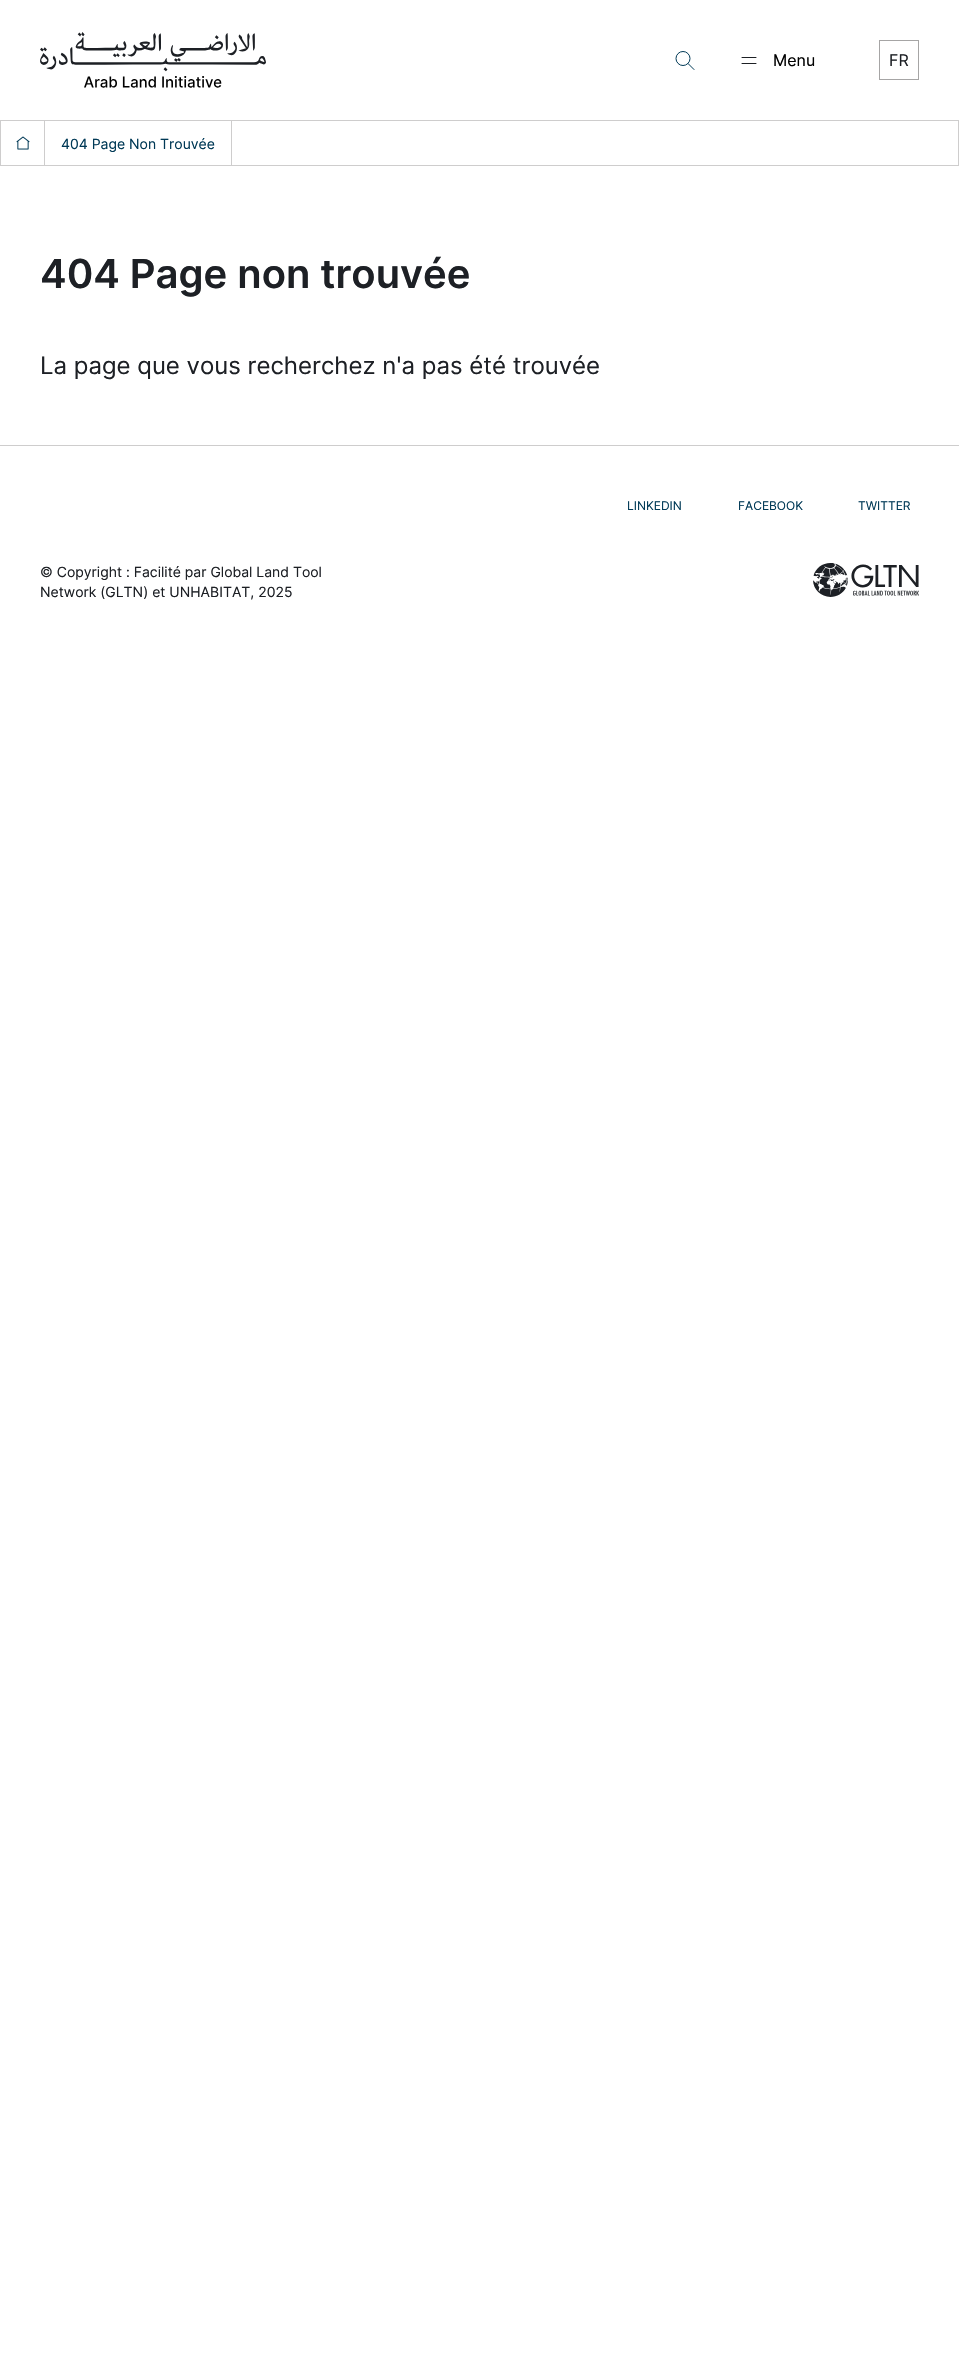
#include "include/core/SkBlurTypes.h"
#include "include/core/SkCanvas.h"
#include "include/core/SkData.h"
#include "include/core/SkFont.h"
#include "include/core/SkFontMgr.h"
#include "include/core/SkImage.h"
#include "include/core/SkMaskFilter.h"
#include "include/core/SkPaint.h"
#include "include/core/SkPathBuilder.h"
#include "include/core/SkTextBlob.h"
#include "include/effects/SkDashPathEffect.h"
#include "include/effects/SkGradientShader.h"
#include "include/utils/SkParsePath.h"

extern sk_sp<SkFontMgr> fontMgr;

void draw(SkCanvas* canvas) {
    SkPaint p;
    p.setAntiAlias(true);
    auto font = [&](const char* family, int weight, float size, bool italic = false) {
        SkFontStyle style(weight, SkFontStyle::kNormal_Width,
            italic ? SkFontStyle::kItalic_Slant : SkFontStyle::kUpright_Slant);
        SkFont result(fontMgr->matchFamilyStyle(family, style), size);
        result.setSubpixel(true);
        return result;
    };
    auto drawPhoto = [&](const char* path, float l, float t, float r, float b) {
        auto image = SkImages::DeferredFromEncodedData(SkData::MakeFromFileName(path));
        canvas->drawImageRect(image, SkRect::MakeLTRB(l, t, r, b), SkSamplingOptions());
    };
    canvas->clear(0xFFFFFFFF);
    drawPhoto("media/1.png", 40, 32, 266, 88);
    p.setStyle(SkPaint::kStroke_Style);
    p.setStrokeWidth(1);
    p.setColor(0xFF003956);
    canvas->drawCircle(683, 58.5f, 7, p);
    p.setStrokeCap(SkPaint::kRound_Cap);
    p.setStrokeJoin(SkPaint::kRound_Join);
    canvas->drawPath(SkPathBuilder().moveTo(694, 69.5f).lineTo(688, 63.5f).detach(), p);
    p.setColor(0xFF1D2025);
    canvas->drawPath(SkPathBuilder().moveTo(742, 63.5f).lineTo(756, 63.5f).moveTo(742, 57.5f).lineTo(756, 57.5f).detach(), p);
    auto font1 = font("Inter", 400, 16);
    p.setStyle(SkPaint::kFill_Style);
    p.setColor(0xFF000000);
    canvas->drawString("Menu", 773, 66, font1, p);
    p.setStyle(SkPaint::kStroke_Style);
    p.setStrokeCap(SkPaint::kButt_Cap);
    p.setStrokeJoin(SkPaint::kMiter_Join);
    p.setColor(0xFFA6A5A5);
    canvas->drawRect(SkRect::MakeLTRB(879.5f, 40.5f, 918.5f, 79.5f), p);
    p.setStyle(SkPaint::kFill_Style);
    p.setColor(0xFF1D2025);
    canvas->drawString("FR", 889, 66, font1, p);
    p.setStyle(SkPaint::kStroke_Style);
    p.setColor(0xFFCECDCD);
    canvas->drawRect(SkRect::MakeLTRB(0.5f, 120.5f, 958.5f, 165.5f), p);
    drawPhoto("media/2.png", 16, 136, 30, 150);
    p.setStyle(SkPaint::kFill_Style);
    canvas->drawRect(SkRect::MakeLTRB(44, 121, 45, 165), p);
    canvas->drawRect(SkRect::MakeLTRB(231, 121, 232, 165), p);
    auto font2 = font("Inter", 400, 14);
    p.setColor(0xFF003956);
    canvas->drawString("404 Page Non Trouvée", 61, 149, font2, p);
    auto font3 = font("Inter", 600, 40);
    p.setColor(0xFF1D2025);
    canvas->drawString("404 Page non trouvée", 40, 288, font3, p);
    auto font4 = font("Inter", 400, 24);
    canvas->drawString("La page que vous recherchez n'a pas été trouvée", 40, 374, font4, p);
    p.setColor(0xFFCECDCD);
    canvas->drawRect(SkRect::MakeLTRB(0, 445, 959, 446), p);
    auto font5 = font("Inter", 400, 12);
    p.setColor(0xFF003956);
    {
        const struct { const char* s; float x, y; } items[] = {
            {"LINKEDIN", 627, 510},
            {"FACEBOOK", 738, 510},
            {"TWITTER", 858, 510},
        };
        for (auto [s, x, y] : items) {
            canvas->drawString(s, x, y, font5, p);
        }
    }
    p.setColor(0xFF1D2025);
    canvas->drawString("© Copyright : Facilité par Global Land Tool", 40, 577, font2, p);
    canvas->drawString("Network (GLTN) et UNHABITAT, 2025", 40, 597, font2, p);
    drawPhoto("media/3.png", 813, 563, 919, 597);
}
